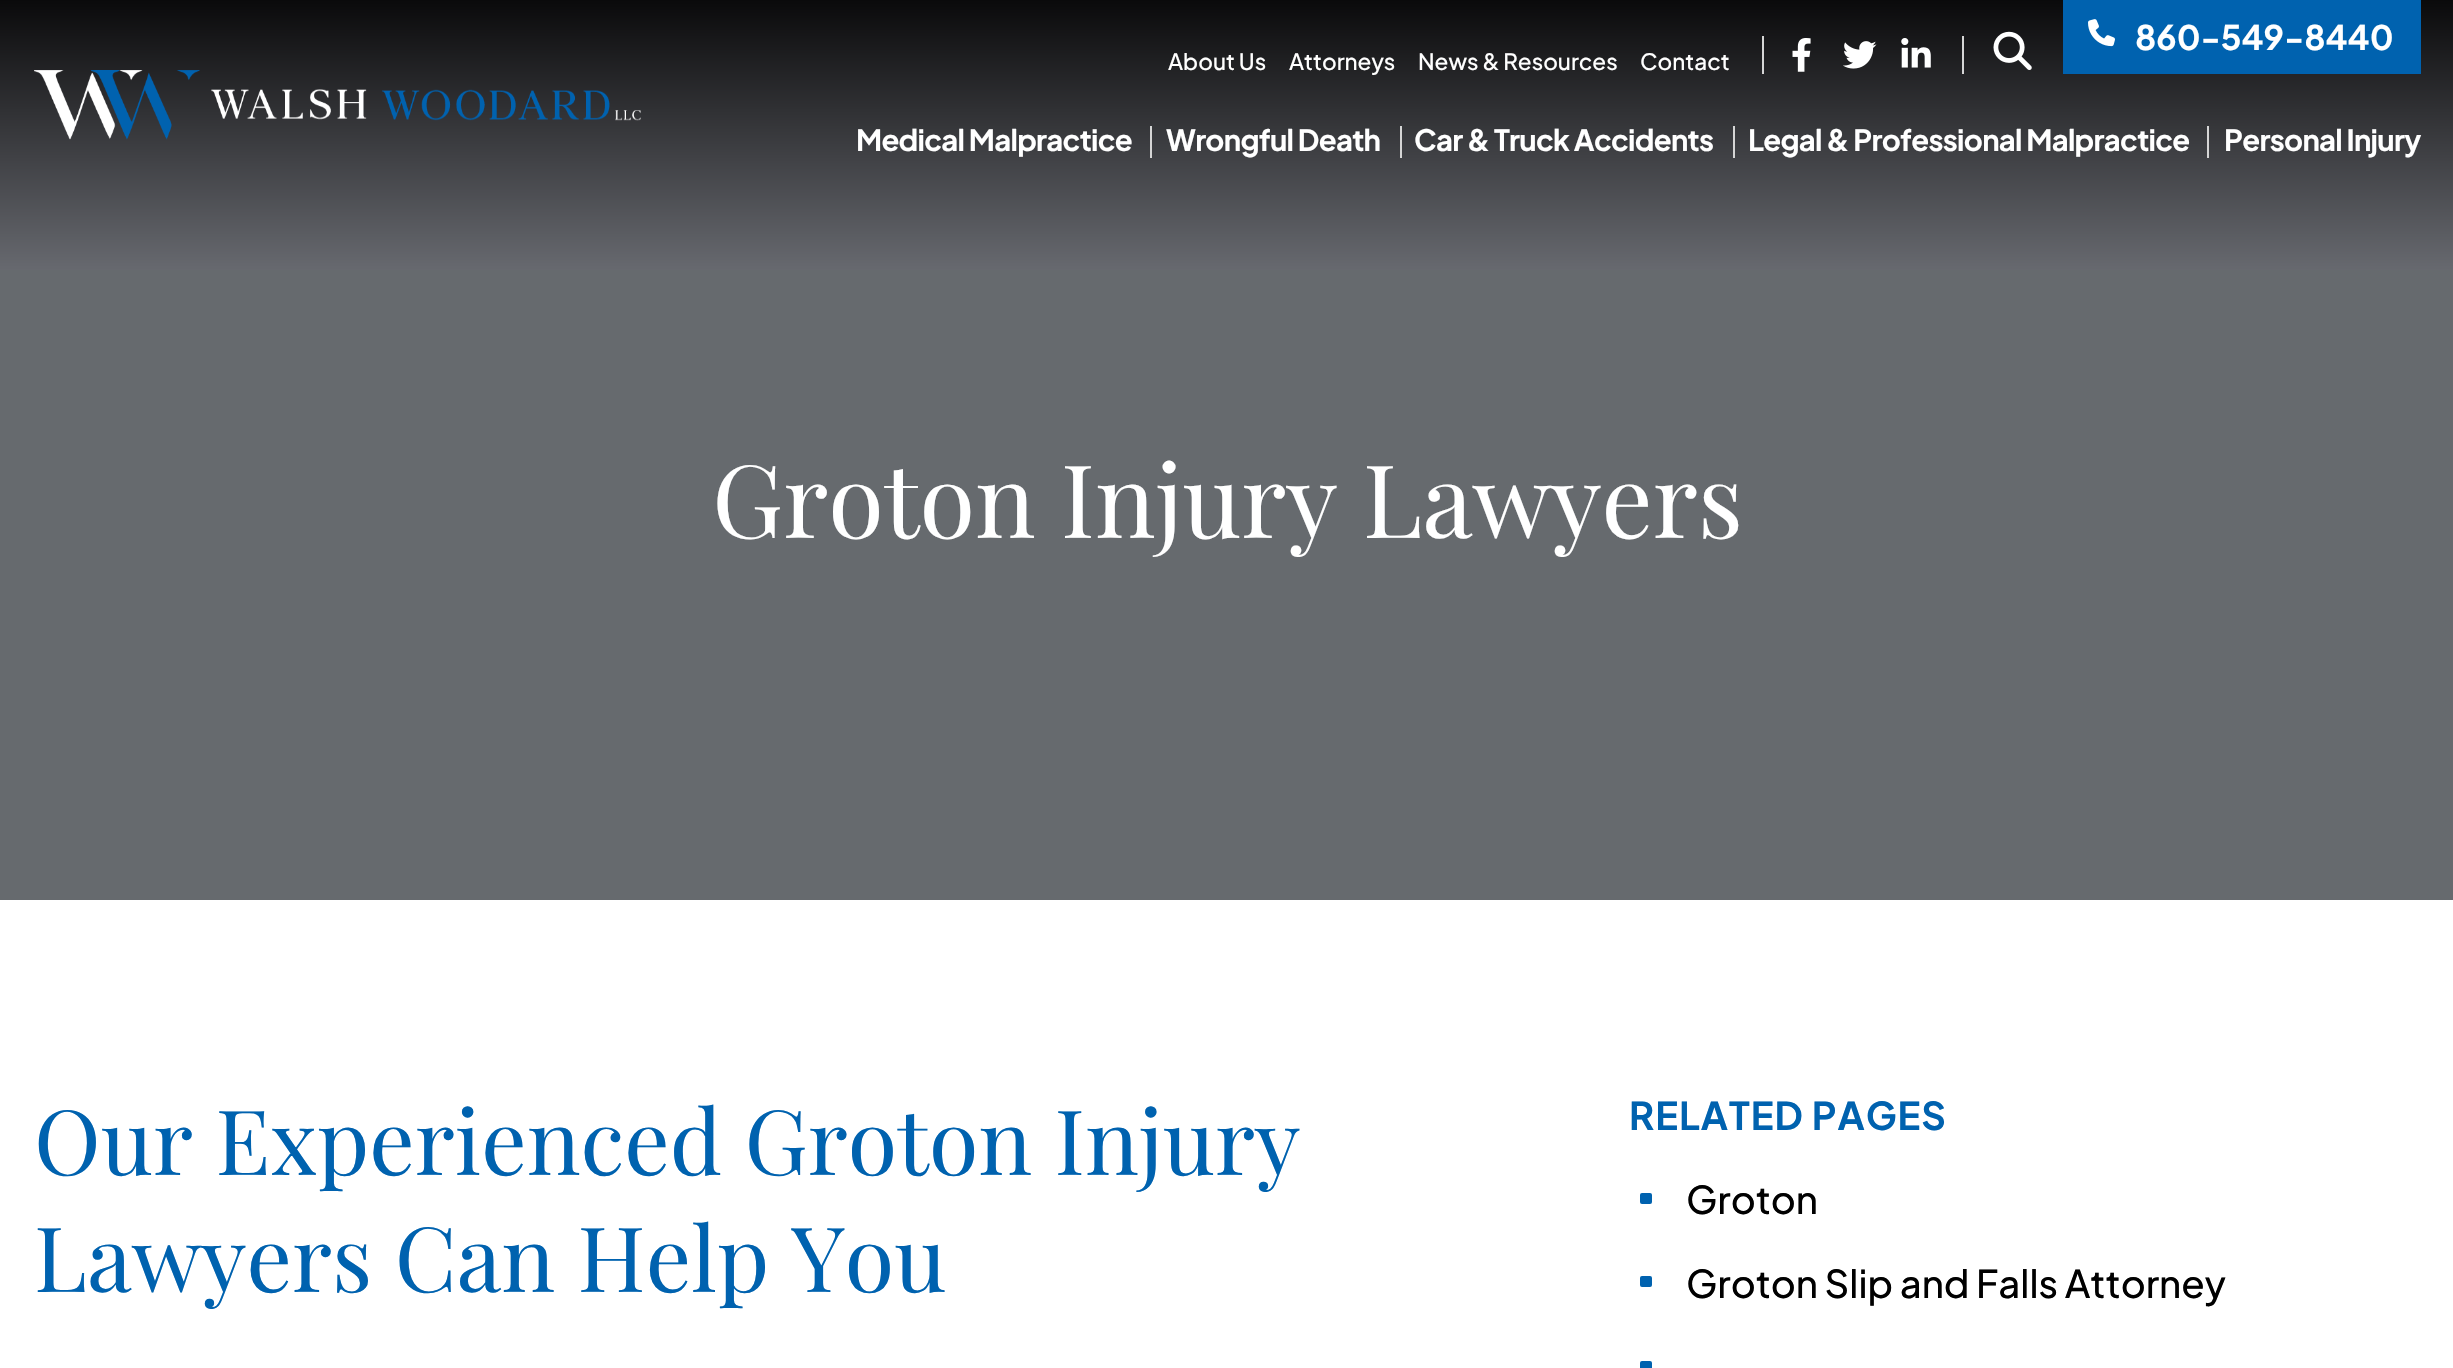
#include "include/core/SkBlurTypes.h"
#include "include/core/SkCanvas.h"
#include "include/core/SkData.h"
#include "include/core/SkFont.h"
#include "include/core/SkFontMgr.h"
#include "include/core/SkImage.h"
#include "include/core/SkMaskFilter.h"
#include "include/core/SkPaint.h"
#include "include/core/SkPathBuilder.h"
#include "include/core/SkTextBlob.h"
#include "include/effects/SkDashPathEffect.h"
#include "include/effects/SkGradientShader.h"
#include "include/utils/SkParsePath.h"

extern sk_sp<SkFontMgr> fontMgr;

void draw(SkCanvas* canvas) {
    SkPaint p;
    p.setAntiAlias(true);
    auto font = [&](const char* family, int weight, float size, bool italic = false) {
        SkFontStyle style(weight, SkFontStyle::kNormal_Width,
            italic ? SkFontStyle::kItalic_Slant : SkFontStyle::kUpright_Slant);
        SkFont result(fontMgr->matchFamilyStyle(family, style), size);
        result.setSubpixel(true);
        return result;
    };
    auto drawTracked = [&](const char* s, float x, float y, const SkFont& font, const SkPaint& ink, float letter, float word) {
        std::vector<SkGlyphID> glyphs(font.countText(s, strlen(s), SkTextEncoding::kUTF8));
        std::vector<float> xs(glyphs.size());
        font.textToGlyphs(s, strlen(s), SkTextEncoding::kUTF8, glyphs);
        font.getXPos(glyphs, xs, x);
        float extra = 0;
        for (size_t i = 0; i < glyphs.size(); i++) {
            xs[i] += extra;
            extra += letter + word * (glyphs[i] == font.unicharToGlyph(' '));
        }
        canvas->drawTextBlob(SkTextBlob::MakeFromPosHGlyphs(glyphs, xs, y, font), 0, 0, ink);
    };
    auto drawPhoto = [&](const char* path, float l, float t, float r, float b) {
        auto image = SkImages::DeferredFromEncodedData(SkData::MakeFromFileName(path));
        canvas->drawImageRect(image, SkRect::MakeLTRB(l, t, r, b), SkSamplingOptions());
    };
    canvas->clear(0xFFFFFFFF);
    {
        const SkColor colors[] = {0xFF0A0A0B, 0xFF67696F};
        const float stops[] = {0, 1};
        const SkPoint ends[] = {{1227, 0}, {1227, 270}};
        p.setShader(SkGradientShader::MakeLinear(ends, colors, stops, 2, SkTileMode::kClamp));
        p.setAlpha(255);
    }
    canvas->drawRect(SkRect::MakeLTRB(0, 0, 2453, 270), p);
    drawPhoto("media/1.png", 34, 70, 641, 140);
    p.setShader(nullptr);
    p.setColor(0xFFD5D5D5);
    canvas->drawRect(SkRect::MakeLTRB(1762, 36, 1764, 74), p);
    drawPhoto("media/2.png", 1792, 38, 1811, 72);
    drawPhoto("media/3.png", 1843, 41, 1877, 69);
    drawPhoto("media/4.png", 1901, 38, 1931, 68);
    canvas->drawRect(SkRect::MakeLTRB(1962, 36, 1964, 74), p);
    drawPhoto("media/5.png", 1993, 31, 2032, 70);
    p.setColor(0xFF0062AF);
    canvas->drawRect(SkRect::MakeLTRB(2063, 0, 2421, 74), p);
    drawPhoto("media/6.png", 2088, 19, 2115, 47);
    auto font1 = font("Plus Jakarta Sans", 700, 33.75f);
    p.setColor(0xFFFFFFFF);
    canvas->drawString("860-549-8440", 2135, 50, font1, p);
    auto font2 = font("Plus Jakarta Sans", 500, 22.5f);
    {
        const struct { const char* s; float x, y; } items[] = {
            {"About Us", 1168, 70},
            {"Attorneys", 1289, 70},
            {"News & Resources", 1418, 70},
            {"Contact", 1640, 70},
        };
        for (auto [s, x, y] : items) {
            canvas->drawString(s, x, y, font2, p);
        }
    }
    auto font3 = font("Plus Jakarta Sans", 700, 29.25f);
    drawTracked("Medical Malpractice", 856, 151, font3, p, -0.7f, 0);
    p.setColor(0xFFD5D5D5);
    canvas->drawRect(SkRect::MakeLTRB(1150, 126, 1152, 158), p);
    p.setColor(0xFFFFFFFF);
    drawTracked("Wrongful Death", 1166, 151, font3, p, -0.7f, 0);
    p.setColor(0xFFD5D5D5);
    canvas->drawRect(SkRect::MakeLTRB(1400, 126, 1402, 158), p);
    p.setColor(0xFFFFFFFF);
    drawTracked("Car & Truck Accidents", 1414, 151, font3, p, -0.7f, 0);
    p.setColor(0xFFD5D5D5);
    canvas->drawRect(SkRect::MakeLTRB(1733, 126, 1735, 158), p);
    p.setColor(0xFFFFFFFF);
    drawTracked("Legal & Professional Malpractice", 1748, 151, font3, p, -0.7f, 0);
    p.setColor(0xFFD5D5D5);
    canvas->drawRect(SkRect::MakeLTRB(2207, 126, 2209, 158), p);
    p.setColor(0xFFFFFFFF);
    drawTracked("Personal Injury", 2224, 151, font3, p, -0.7f, 0);
    p.setColor(0xFF666A6E);
    canvas->drawRect(SkRect::MakeLTRB(0, 270, 2453, 900), p);
    auto font4 = font("Playfair Display", 400, 101.25f);
    p.setColor(0xFFFFFFFF);
    canvas->drawString("Groton Injury Lawyers", 712, 538, font4, p);
    auto font5 = font("Playfair Display", 400, 90);
    p.setColor(0xFF0062AF);
    canvas->drawString("Our Experienced Groton Injury", 34, 1175, font5, p);
    canvas->drawString("Lawyers Can Help You", 34, 1292, font5, p);
    auto font6 = font("Plus Jakarta Sans", 700, 38.25f);
    drawTracked("RELATED PAGES", 1629, 1130, font6, p, 1, 0);
    canvas->drawRoundRect(SkRect::MakeLTRB(1640, 1193, 1652, 1204), 2, 2, p);
    auto font7 = font("Plus Jakarta Sans", 500, 38.25f);
    p.setColor(0xFF000000);
    canvas->drawString("Groton", 1686, 1214, font7, p);
    p.setColor(0xFF0062AF);
    canvas->drawRoundRect(SkRect::MakeLTRB(1640, 1276, 1652, 1287), 2, 2, p);
    p.setColor(0xFF000000);
    canvas->drawString("Groton Slip and Falls Attorney", 1686, 1298, font7, p);
    p.setColor(0xFF0062AF);
    canvas->drawRoundRect(SkRect::MakeLTRB(1640, 1361, 1652, 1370), 2, 2, p);
}
